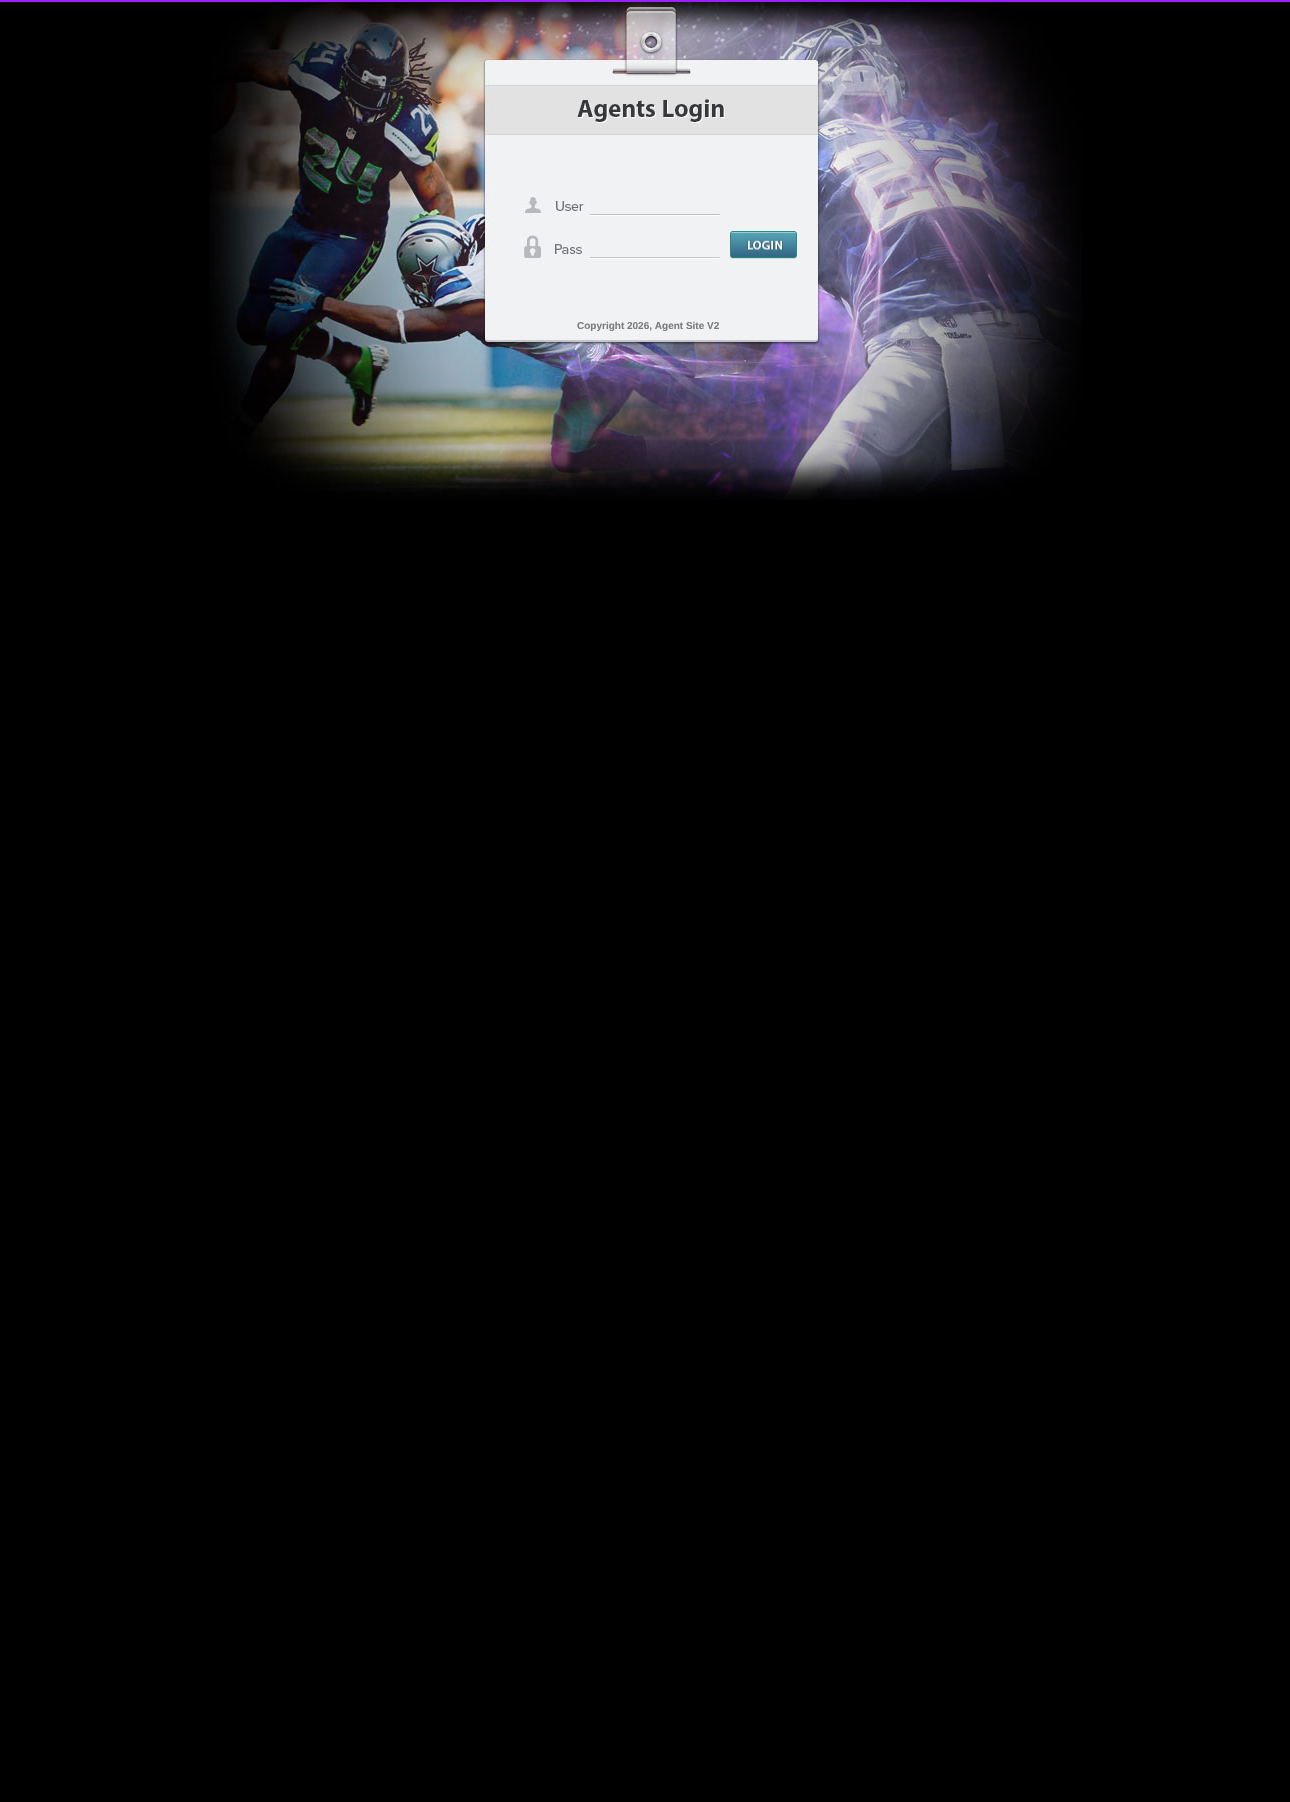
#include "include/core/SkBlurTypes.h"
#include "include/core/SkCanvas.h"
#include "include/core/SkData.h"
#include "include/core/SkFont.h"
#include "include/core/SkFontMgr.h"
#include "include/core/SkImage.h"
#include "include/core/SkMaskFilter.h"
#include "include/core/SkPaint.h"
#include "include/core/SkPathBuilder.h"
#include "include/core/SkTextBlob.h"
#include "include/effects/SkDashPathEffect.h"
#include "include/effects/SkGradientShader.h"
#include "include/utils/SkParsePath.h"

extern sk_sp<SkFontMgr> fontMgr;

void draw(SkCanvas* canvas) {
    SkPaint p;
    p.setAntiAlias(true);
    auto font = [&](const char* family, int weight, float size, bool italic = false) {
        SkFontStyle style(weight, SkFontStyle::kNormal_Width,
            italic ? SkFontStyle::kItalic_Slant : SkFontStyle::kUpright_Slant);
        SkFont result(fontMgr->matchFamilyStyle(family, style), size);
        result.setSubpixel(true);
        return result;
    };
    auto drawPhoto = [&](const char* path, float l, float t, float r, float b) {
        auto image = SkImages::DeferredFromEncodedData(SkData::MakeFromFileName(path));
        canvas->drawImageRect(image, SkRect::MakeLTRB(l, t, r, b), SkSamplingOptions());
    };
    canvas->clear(0xFF000000);
    p.setColor(0xFF9D21FC);
    canvas->drawRect(SkRect::MakeLTRB(0, 0, 1290, 2), p);
    drawPhoto("media/1.png", 210, 2, 1082, 500);
    drawPhoto("media/2.png", 730, 231, 797, 259);
    auto font1 = font("Liberation Sans", 700, 10);
    p.setColor(0xFF7C7C7C);
    canvas->drawString("Copyright 2026, Agent Site V2", 577, 329, font1, p);
}
